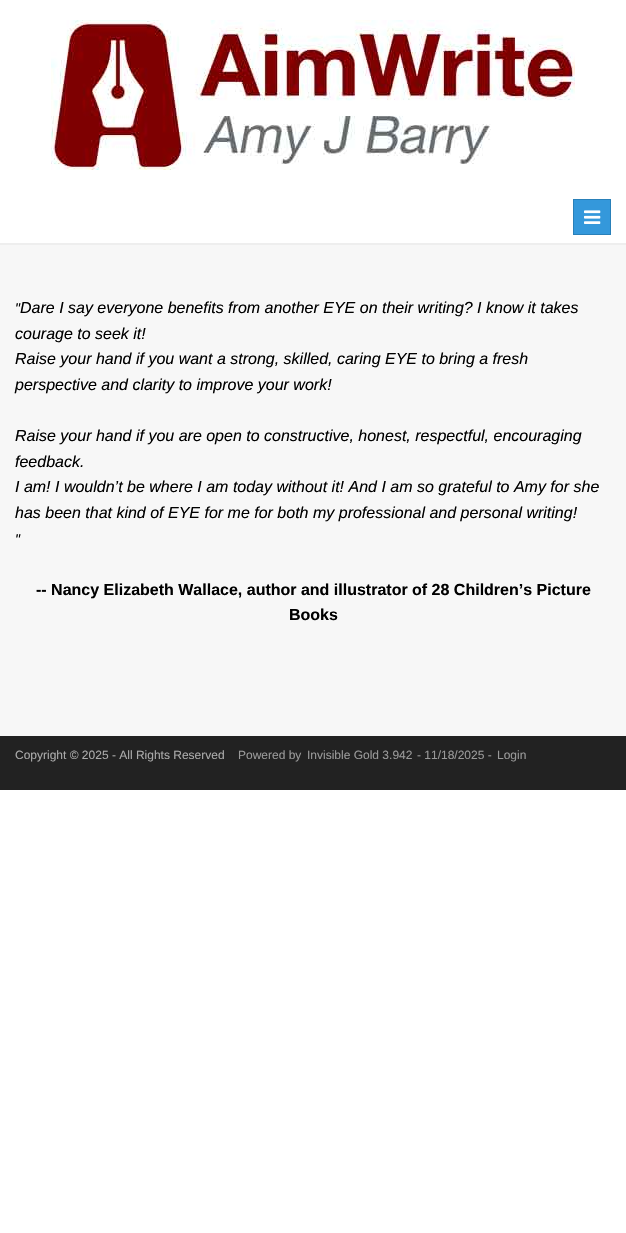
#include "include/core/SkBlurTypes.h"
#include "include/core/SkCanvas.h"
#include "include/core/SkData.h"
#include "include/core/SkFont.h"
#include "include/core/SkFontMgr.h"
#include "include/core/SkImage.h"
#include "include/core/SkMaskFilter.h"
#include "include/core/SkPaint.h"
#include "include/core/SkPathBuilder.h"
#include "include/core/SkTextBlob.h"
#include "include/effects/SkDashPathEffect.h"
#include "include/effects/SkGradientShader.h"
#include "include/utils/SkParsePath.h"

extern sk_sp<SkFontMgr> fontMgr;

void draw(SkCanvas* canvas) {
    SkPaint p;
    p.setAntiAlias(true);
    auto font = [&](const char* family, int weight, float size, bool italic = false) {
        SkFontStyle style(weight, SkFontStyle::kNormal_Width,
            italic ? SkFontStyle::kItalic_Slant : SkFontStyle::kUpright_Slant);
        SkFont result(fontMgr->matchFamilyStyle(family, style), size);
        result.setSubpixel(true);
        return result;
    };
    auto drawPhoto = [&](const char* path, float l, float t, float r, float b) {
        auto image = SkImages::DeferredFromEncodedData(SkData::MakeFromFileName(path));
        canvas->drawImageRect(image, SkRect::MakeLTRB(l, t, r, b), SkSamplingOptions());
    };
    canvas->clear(0xFFFFFFFF);
    p.setColor(0xFFEEEEEE);
    canvas->drawRect(SkRect::MakeLTRB(0, 243, 626, 245), p);
    drawPhoto("media/1.png", 51, 20, 575, 170);
    p.setColor(0xFF3498DB);
    canvas->drawRect(SkRect::MakeLTRB(573.5f, 199.5f, 610.5f, 234.5f), p);
    p.setStyle(SkPaint::kStroke_Style);
    p.setStrokeWidth(1);
    p.setColor(0xFF2980B9);
    canvas->drawRect(SkRect::MakeLTRB(573.5f, 199.5f, 610.5f, 234.5f), p);
    drawPhoto("media/2.png", 584, 210, 601, 224);
    p.setStyle(SkPaint::kFill_Style);
    p.setColor(0xFFF7F7F7);
    canvas->drawRect(SkRect::MakeLTRB(0, 245, 626, 736), p);
    auto font1 = font("Liberation Sans", 400, 14, true);
    p.setColor(0xFF000000);
    canvas->drawString("\"", 15, 313, font1, p);
    auto font2 = font("Liberation Sans", 400, 16, true);
    {
        const struct { const char* s; float x, y; } items[] = {
            {"Dare I say everyone benefits from another EYE on their writing? I know it takes", 20, 313},
            {"courage to seek it!", 15, 339},
            {"Raise your hand if you want a strong, skilled, caring EYE to bring a fresh", 15, 364},
            {"perspective and clarity to improve your work!", 15, 390},
            {"Raise your hand if you are open to constructive, honest, respectful, encouraging", 15, 441},
            {"feedback.", 15, 467},
            {"I am! I wouldn’t be where I am today without it! And I am so grateful to Amy for she", 15, 492},
            {"has been that kind of EYE for me for both my professional and personal writing!", 15, 518},
        };
        for (auto [s, x, y] : items) {
            canvas->drawString(s, x, y, font2, p);
        }
    }
    canvas->drawString("\"", 15, 544, font1, p);
    auto font3 = font("Liberation Sans", 700, 16);
    canvas->drawString("-- Nancy Elizabeth Wallace, author and illustrator of 28 Children’s Picture", 36, 595, font3, p);
    canvas->drawString("Books", 289, 620, font3, p);
    p.setColor(0xFF222222);
    canvas->drawRect(SkRect::MakeLTRB(0, 736, 626, 790), p);
    auto font4 = font("Liberation Sans", 400, 12);
    p.setColor(0xFFAAAAAA);
    canvas->drawString("Copyright © 2025 - All Rights Reserved", 15, 759, font4, p);
    p.setColor(0xFF999999);
    {
        const struct { const char* s; float x, y; } items[] = {
            {"Powered by", 238, 759},
            {"Invisible Gold 3.942", 307, 759},
            {"- 11/18/2025 -", 417, 759},
            {"Login", 497, 759},
        };
        for (auto [s, x, y] : items) {
            canvas->drawString(s, x, y, font4, p);
        }
    }
}
